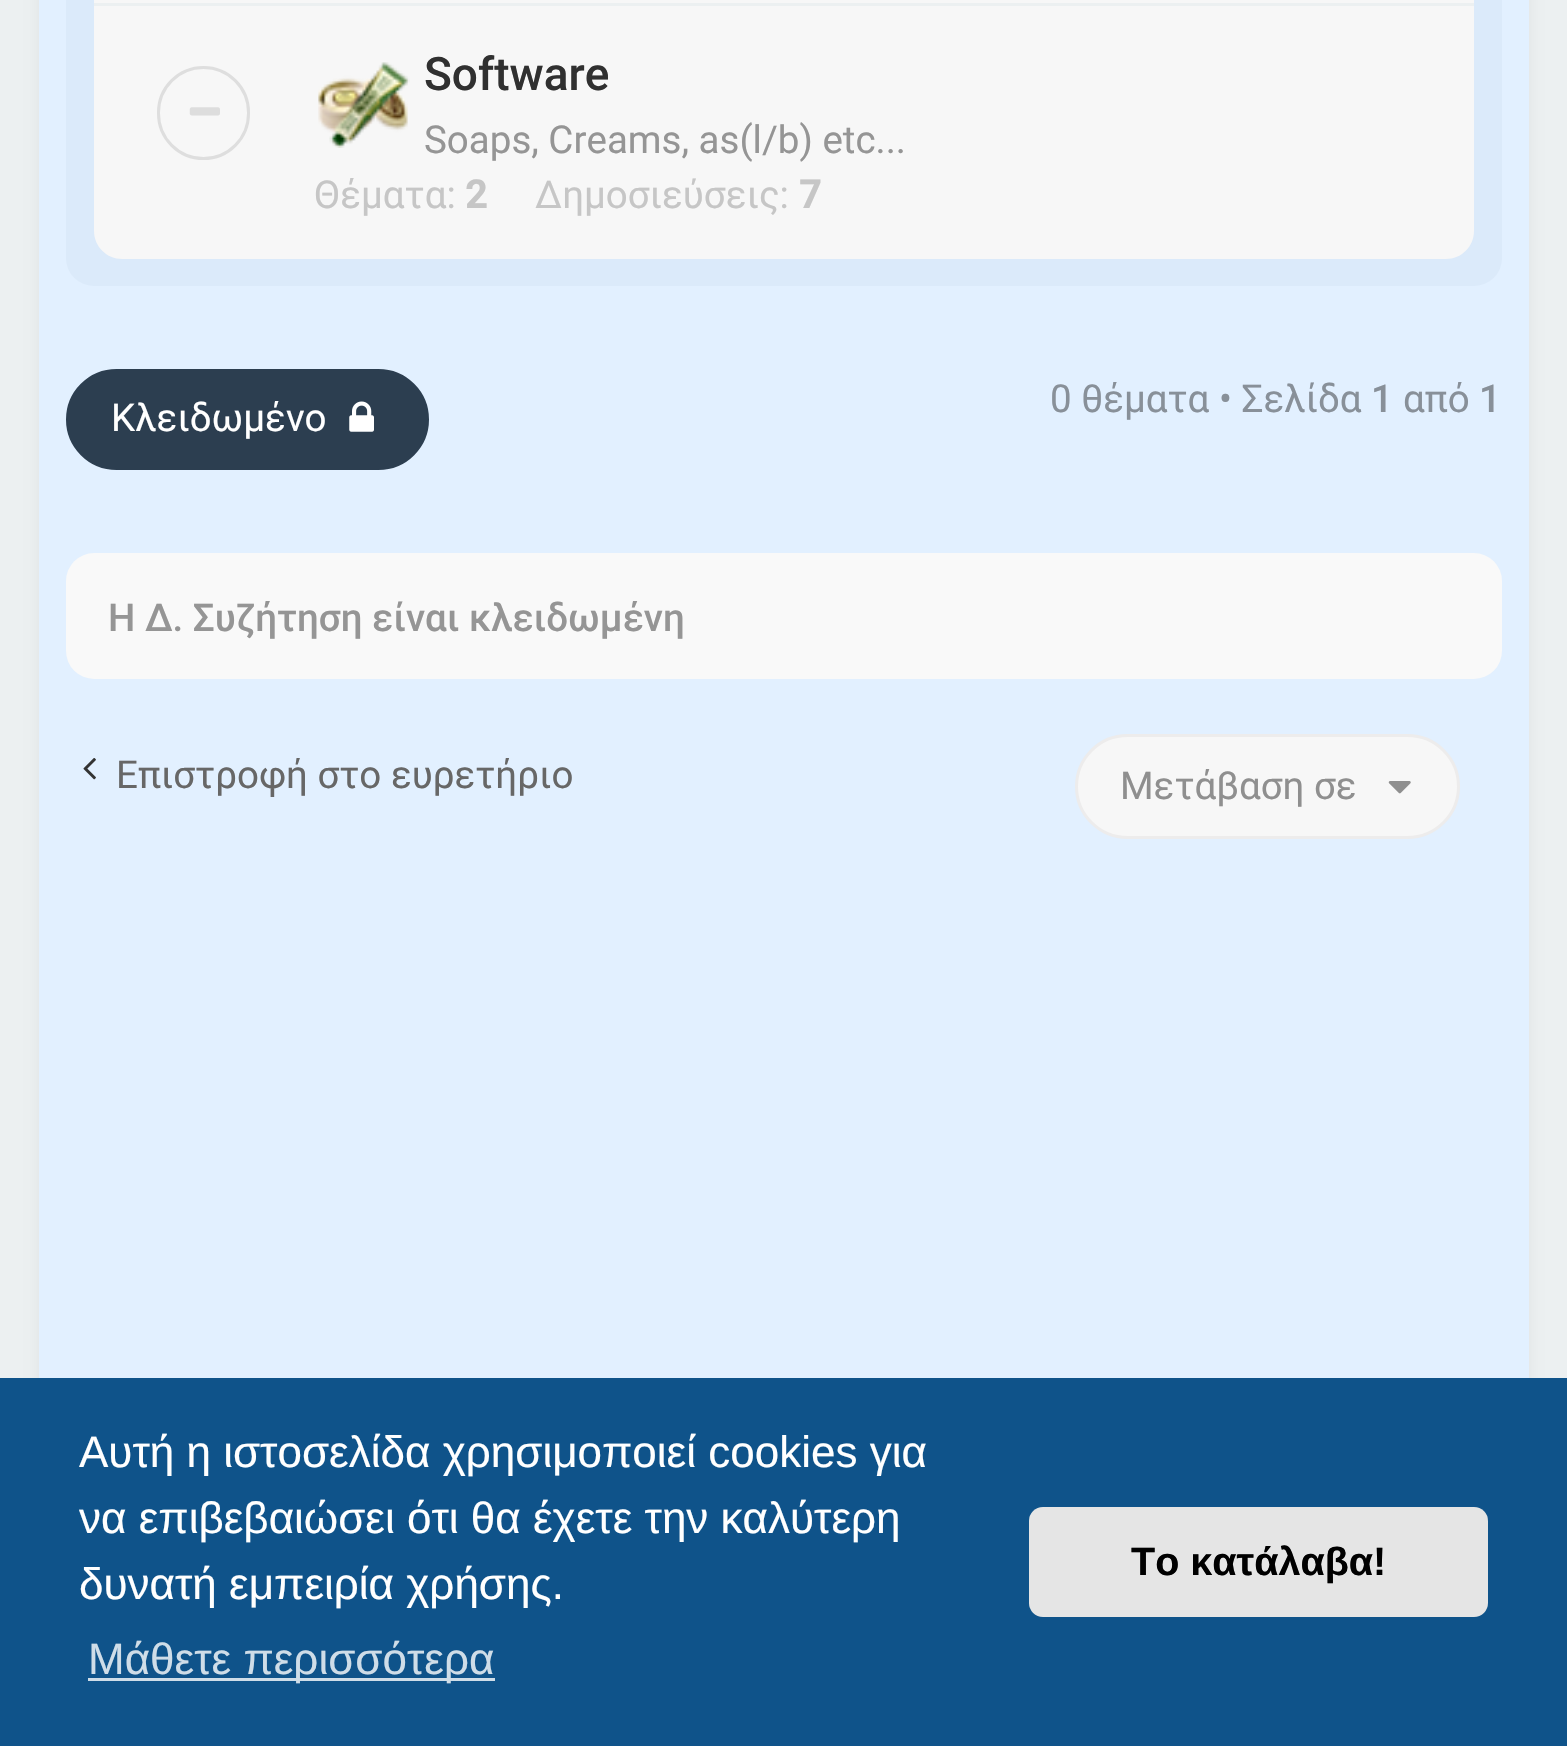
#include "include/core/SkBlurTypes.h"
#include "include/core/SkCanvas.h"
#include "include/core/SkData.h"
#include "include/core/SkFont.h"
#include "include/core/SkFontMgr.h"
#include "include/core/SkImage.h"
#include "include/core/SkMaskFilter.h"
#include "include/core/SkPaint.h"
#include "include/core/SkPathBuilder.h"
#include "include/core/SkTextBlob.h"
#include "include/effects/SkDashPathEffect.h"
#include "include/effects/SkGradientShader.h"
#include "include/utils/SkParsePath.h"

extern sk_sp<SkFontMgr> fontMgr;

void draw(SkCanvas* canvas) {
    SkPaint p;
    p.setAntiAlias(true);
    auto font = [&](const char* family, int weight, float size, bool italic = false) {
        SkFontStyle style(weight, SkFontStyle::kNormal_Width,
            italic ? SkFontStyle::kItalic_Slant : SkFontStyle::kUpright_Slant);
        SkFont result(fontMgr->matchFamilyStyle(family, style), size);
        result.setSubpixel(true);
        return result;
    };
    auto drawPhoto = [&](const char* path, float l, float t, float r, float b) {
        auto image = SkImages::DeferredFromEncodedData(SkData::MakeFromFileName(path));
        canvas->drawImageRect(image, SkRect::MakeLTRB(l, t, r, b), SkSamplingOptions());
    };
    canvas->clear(0xFFECF0F1);
    p.setColor(0x0D000000);
    p.setMaskFilter(SkMaskFilter::MakeBlur(kNormal_SkBlurStyle, 7));
    canvas->drawRoundRect(SkRect::MakeLTRB(39, -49, 1529, 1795), 28, 28, p);
    p.setMaskFilter(nullptr);
    p.setColor(0xFFE2F0FF);
    canvas->drawRect(SkRect::MakeLTRB(39, 0, 1529, 1378), p);
    p.setColor(0xFFDBEAFA);
    canvas->drawRoundRect(SkRect::MakeLTRB(66, -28, 1502, 286), 28, 28, p);
    p.setColor(0xFFF7F7F7);
    canvas->drawRect(SkRect::MakeLTRB(94, 0, 1474, 3), p);
    p.setColor(0xFFECF0F1);
    canvas->drawRect(SkRect::MakeLTRB(94, 3, 1474, 6), p);
    p.setColor(0xFFF7F7F7);
    canvas->drawPath(SkPathBuilder().moveTo(94, 6).lineTo(1474, 6).lineTo(1474, 231).cubicTo(1474, 246.5f, 1461.5f, 259, 1446, 259).lineTo(122, 259).cubicTo(106.5f, 259, 94, 246.5f, 94, 231).close().detach(), p);
    p.setStyle(SkPaint::kStroke_Style);
    p.setStrokeWidth(3);
    p.setColor(0xFFDEDEDE);
    canvas->drawRoundRect(SkRect::MakeLTRB(158.5f, 67.5f, 248.5f, 158.5f), 45, 45, p);
    drawPhoto("media/1.png", 189, 107, 220, 116);
    drawPhoto("media/2.png", 318, 62, 410, 148);
    auto font1 = font("Roboto", 500, 46);
    p.setStyle(SkPaint::kFill_Style);
    p.setColor(0xFF303030);
    canvas->drawString("Software", 424, 90, font1, p);
    auto font2 = font("Roboto", 400, 38.5f);
    p.setColor(0xFF959595);
    canvas->drawString("Soaps, Creams, as(l/b) etc...", 424, 153, font2, p);
    p.setColor(0xFFC6C6C6);
    canvas->drawString("Θέματα:", 314, 208, font2, p);
    auto font3 = font("Roboto", 700, 38.5f);
    canvas->drawString("2", 465, 208, font3, p);
    canvas->drawString("Δημοσιεύσεις:", 535, 208, font2, p);
    canvas->drawString("7", 799, 208, font3, p);
    p.setColor(0xFF2C3E50);
    canvas->drawRoundRect(SkRect::MakeLTRB(67.5f, 370.5f, 427.5f, 468.5f), 49, 49, p);
    p.setStyle(SkPaint::kStroke_Style);
    canvas->drawRoundRect(SkRect::MakeLTRB(67.5f, 370.5f, 427.5f, 468.5f), 49, 49, p);
    p.setStyle(SkPaint::kFill_Style);
    p.setColor(0xFFFFFFFF);
    canvas->drawString("Κλειδωμένο", 111, 431, font2, p);
    drawPhoto("media/3.png", 349, 401, 374, 432);
    p.setColor(0xFF889099);
    canvas->drawString("0 θέματα • Σελίδα", 1050, 412, font2, p);
    auto font4 = font("Roboto", 500, 38.5f);
    canvas->drawString("1", 1371, 412, font4, p);
    canvas->drawString("από", 1403, 412, font2, p);
    canvas->drawString("1", 1479, 412, font4, p);
    p.setColor(0xFFF9F9F9);
    canvas->drawRoundRect(SkRect::MakeLTRB(66, 553, 1502, 679), 28, 28, p);
    p.setColor(0xFF959595);
    canvas->drawString("Η Δ. Συζήτηση είναι κλειδωμένη", 108, 631, font4, p);
    drawPhoto("media/4.png", 83, 758, 96, 780);
    p.setColor(0xFF676767);
    canvas->drawString("Επιστροφή στο ευρετήριο", 116, 788, font2, p);
    p.setColor(0xFFF7F7F7);
    canvas->drawRoundRect(SkRect::MakeLTRB(1076.5f, 735.5f, 1458.5f, 837.5f), 51, 51, p);
    p.setStyle(SkPaint::kStroke_Style);
    p.setColor(0xFFEDECEC);
    canvas->drawRoundRect(SkRect::MakeLTRB(1076.5f, 735.5f, 1458.5f, 837.5f), 51, 51, p);
    p.setStyle(SkPaint::kFill_Style);
    p.setColor(0xFF8F8F8F);
    canvas->drawString("Μετάβαση σε", 1120, 799, font2, p);
    drawPhoto("media/5.png", 1388, 781, 1411, 794);
    p.setColor(0xFF0F538A);
    canvas->drawRect(SkRect::MakeLTRB(0, 1378, 1567, 1746), p);
    auto font5 = font("Liberation Sans", 400, 44);
    p.setColor(0xFFFFFFFF);
    {
        const struct { const char* s; float x, y; } items[] = {
            {"Αυτή η ιστοσελίδα χρησιμοποιεί cookies για", 79, 1467},
            {"να επιβεβαιώσει ότι θα έχετε την καλύτερη", 79, 1533},
            {"δυνατή εμπειρία χρήσης.", 79, 1599},
        };
        for (auto [s, x, y] : items) {
            canvas->drawString(s, x, y, font5, p);
        }
    }
    p.setColor(0xFFCFDDE8);
    canvas->drawRect(SkRect::MakeLTRB(88, 1678, 495, 1681), p);
    canvas->drawString("Μάθετε περισσότερα", 88, 1674, font5, p);
    p.setColor(0xFFE5E5E5);
    canvas->drawRoundRect(SkRect::MakeLTRB(1029, 1507, 1488, 1617), 14, 14, p);
    auto font6 = font("Liberation Sans", 700, 39.5f);
    p.setColor(0xFF000000);
    canvas->drawString("Το κατάλαβα!", 1131, 1575, font6, p);
}
